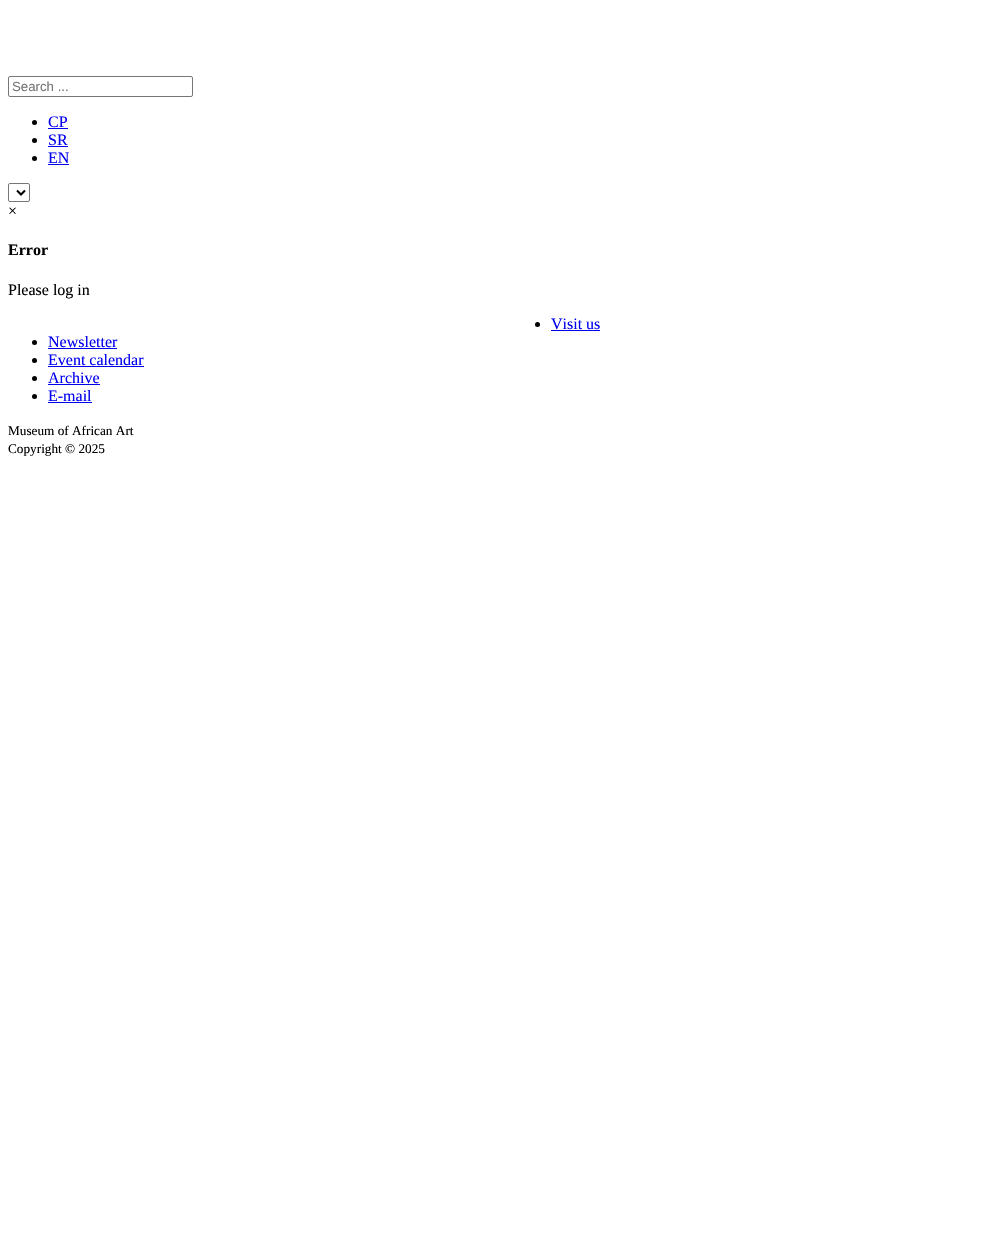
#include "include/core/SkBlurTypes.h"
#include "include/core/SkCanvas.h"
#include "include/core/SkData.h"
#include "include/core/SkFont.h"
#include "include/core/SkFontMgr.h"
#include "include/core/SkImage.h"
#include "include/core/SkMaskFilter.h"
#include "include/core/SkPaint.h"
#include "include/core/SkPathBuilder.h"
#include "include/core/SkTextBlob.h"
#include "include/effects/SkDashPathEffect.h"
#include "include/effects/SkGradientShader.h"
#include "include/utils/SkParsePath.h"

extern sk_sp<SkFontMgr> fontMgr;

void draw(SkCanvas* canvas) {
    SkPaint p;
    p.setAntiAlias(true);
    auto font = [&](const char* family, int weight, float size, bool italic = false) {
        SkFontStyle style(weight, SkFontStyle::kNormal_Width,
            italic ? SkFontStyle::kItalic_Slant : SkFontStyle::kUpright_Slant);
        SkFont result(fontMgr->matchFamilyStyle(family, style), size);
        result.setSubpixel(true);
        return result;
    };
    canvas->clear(0xFFFFFFFF);
    p.setStyle(SkPaint::kStroke_Style);
    p.setStrokeWidth(1);
    p.setColor(0xFF767676);
    canvas->drawRoundRect(SkRect::MakeLTRB(8.5f, 76.5f, 192.5f, 96.5f), 1.5f, 1.5f, p);
    auto font1 = font("Liberation Sans", 400, 13.25f);
    p.setStyle(SkPaint::kFill_Style);
    p.setColor(0xFF757575);
    canvas->drawString("Search ...", 12, 91, font1, p);
    p.setColor(0xFF000000);
    canvas->drawCircle(34.5f, 122.5f, 2.5f, p);
    auto font2 = font("Liberation Serif", 400, 16);
    p.setColor(0xFF0000EE);
    canvas->drawString("CP", 48, 127, font2, p);
    canvas->drawRect(SkRect::MakeLTRB(48, 128, 68, 129), p);
    p.setColor(0xFF000000);
    canvas->drawCircle(34.5f, 140.5f, 2.5f, p);
    p.setColor(0xFF0000EE);
    canvas->drawString("SR", 48, 145, font2, p);
    canvas->drawRect(SkRect::MakeLTRB(48, 146, 68, 147), p);
    p.setColor(0xFF000000);
    canvas->drawCircle(34.5f, 158.5f, 2.5f, p);
    p.setColor(0xFF0000EE);
    canvas->drawString("EN", 48, 163, font2, p);
    canvas->drawRect(SkRect::MakeLTRB(48, 164, 69, 165), p);
    p.setStyle(SkPaint::kStroke_Style);
    p.setColor(0xFF767676);
    canvas->drawRoundRect(SkRect::MakeLTRB(8.5f, 183.5f, 29.5f, 201.5f), 1.5f, 1.5f, p);
    p.setStrokeWidth(2);
    p.setColor(0xFF000000);
    canvas->drawPath(SkPathBuilder().moveTo(17, 190.5f).lineTo(21, 194.5f).lineTo(25, 190.5f).detach(), p);
    p.setStyle(SkPaint::kFill_Style);
    canvas->drawString("×", 8, 216, font2, p);
    auto font3 = font("Liberation Serif", 700, 16);
    canvas->drawString("Error", 8, 255, font3, p);
    canvas->drawString("Please log in", 8, 295, font2, p);
    canvas->drawCircle(537.5f, 324.5f, 2.5f, p);
    p.setColor(0xFF0000EE);
    canvas->drawString("Visit us", 551, 329, font2, p);
    canvas->drawRect(SkRect::MakeLTRB(551, 330, 600, 331), p);
    p.setColor(0xFF000000);
    canvas->drawCircle(34.5f, 342.5f, 2.5f, p);
    p.setColor(0xFF0000EE);
    canvas->drawString("Newsletter", 48, 347, font2, p);
    canvas->drawRect(SkRect::MakeLTRB(48, 348, 117, 349), p);
    p.setColor(0xFF000000);
    canvas->drawCircle(34.5f, 360.5f, 2.5f, p);
    p.setColor(0xFF0000EE);
    canvas->drawString("Event calendar", 48, 365, font2, p);
    canvas->drawRect(SkRect::MakeLTRB(48, 366, 144, 367), p);
    p.setColor(0xFF000000);
    canvas->drawCircle(34.5f, 378.5f, 2.5f, p);
    p.setColor(0xFF0000EE);
    canvas->drawString("Archive", 48, 383, font2, p);
    canvas->drawRect(SkRect::MakeLTRB(48, 384, 100, 385), p);
    p.setColor(0xFF000000);
    canvas->drawCircle(34.5f, 396.5f, 2.5f, p);
    p.setColor(0xFF0000EE);
    canvas->drawString("E-mail", 48, 401, font2, p);
    canvas->drawRect(SkRect::MakeLTRB(48, 402, 92, 403), p);
    auto font4 = font("Liberation Serif", 400, 13.25f);
    p.setColor(0xFF000000);
    canvas->drawString("Museum of African Art", 8, 435, font4, p);
    canvas->drawString("Copyright © 2025", 8, 453, font4, p);
}
